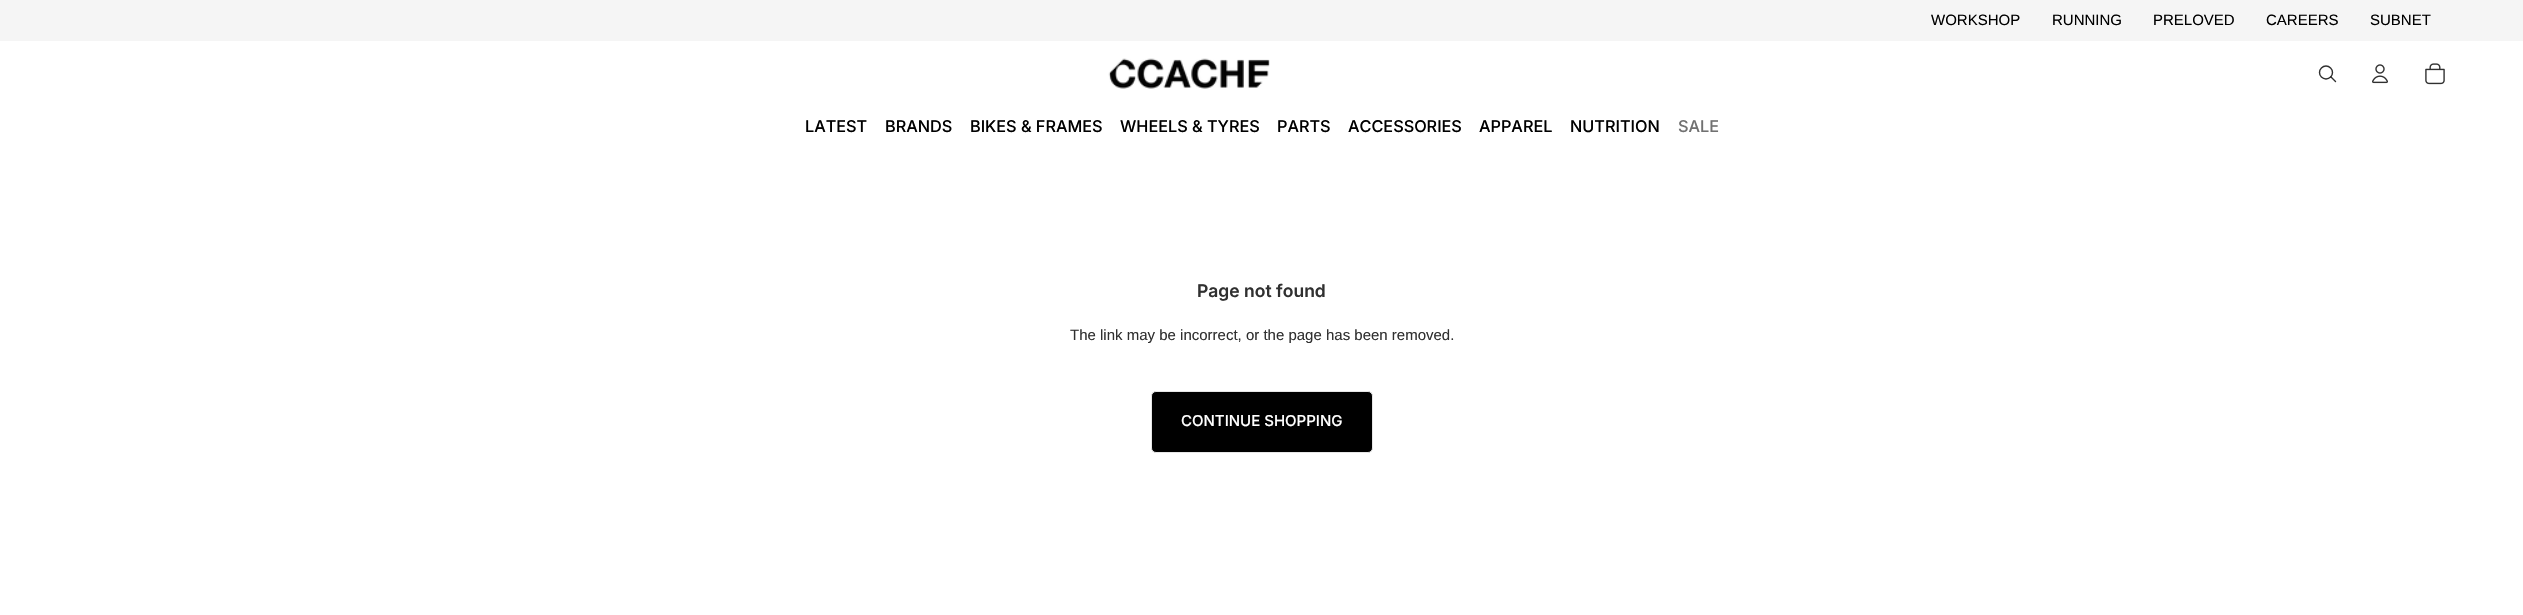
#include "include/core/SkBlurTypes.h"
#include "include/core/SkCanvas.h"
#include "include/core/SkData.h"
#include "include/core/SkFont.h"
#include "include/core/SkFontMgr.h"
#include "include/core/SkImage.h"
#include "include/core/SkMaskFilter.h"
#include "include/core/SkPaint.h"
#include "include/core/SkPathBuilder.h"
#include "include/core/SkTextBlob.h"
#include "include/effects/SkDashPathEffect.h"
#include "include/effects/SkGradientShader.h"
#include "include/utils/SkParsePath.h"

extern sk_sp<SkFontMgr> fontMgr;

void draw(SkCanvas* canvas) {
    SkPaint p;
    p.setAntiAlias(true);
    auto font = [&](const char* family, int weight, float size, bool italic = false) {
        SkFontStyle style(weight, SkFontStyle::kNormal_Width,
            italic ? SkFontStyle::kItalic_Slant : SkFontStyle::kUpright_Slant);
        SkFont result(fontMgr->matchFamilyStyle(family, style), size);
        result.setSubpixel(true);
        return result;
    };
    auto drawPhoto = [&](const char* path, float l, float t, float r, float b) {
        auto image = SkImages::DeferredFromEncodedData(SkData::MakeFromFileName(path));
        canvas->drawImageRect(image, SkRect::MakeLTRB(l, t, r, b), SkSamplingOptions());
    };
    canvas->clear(0xFFFFFFFF);
    p.setColor(0xFFF5F5F5);
    canvas->drawRect(SkRect::MakeLTRB(0, 0, 2523, 41), p);
    auto font1 = font("Liberation Sans", 400, 15);
    p.setColor(0xFF000000);
    {
        const struct { const char* s; float x, y; } items[] = {
            {"WORKSHOP", 1931, 25},
            {"RUNNING", 2052, 25},
            {"PRELOVED", 2153, 25},
            {"CAREERS", 2266, 25},
            {"SUBNET", 2370, 25},
        };
        for (auto [s, x, y] : items) {
            canvas->drawString(s, x, y, font1, p);
        }
    }
    drawPhoto("media/1.png", 1108, 58, 1270, 89);
    p.setStyle(SkPaint::kStroke_Style);
    p.setStrokeWidth(1.4f);
    p.setColor(0xFF303030);
    canvas->drawCircle(2326, 72.5f, 6.5f, p);
    p.setStrokeCap(SkPaint::kRound_Cap);
    p.setStrokeJoin(SkPaint::kRound_Join);
    p.setColor(0xCF000000);
    canvas->drawPath(SkPathBuilder().moveTo(2331, 77).lineTo(2335.5f, 81.5f).detach(), p);
    drawPhoto("media/2.png", 2372, 64, 2388, 84);
    drawPhoto("media/3.png", 2425, 63, 2445, 85);
    auto font2 = font("inter", 500, 16.25f);
    p.setStyle(SkPaint::kFill_Style);
    p.setColor(0xFF000000);
    {
        const struct { const char* s; float x, y; } items[] = {
            {"LATEST", 805, 132},
            {"BRANDS", 885, 132},
            {"BIKES & FRAMES", 970, 132},
            {"WHEELS & TYRES", 1120, 132},
            {"PARTS", 1277, 132},
            {"ACCESSORIES", 1348, 132},
            {"APPAREL", 1479, 132},
            {"NUTRITION", 1570, 132},
        };
        for (auto [s, x, y] : items) {
            canvas->drawString(s, x, y, font2, p);
        }
    }
    p.setColor(0xFF717171);
    canvas->drawString("SALE", 1678, 132, font2, p);
    auto font3 = font("Inter", 600, 17.5f);
    p.setColor(0xFF303030);
    canvas->drawString("Page not found", 1197, 297, font3, p);
    canvas->drawString("The link may be incorrect, or the page has been removed.", 1070, 340, font1, p);
    p.setColor(0xFF000000);
    canvas->drawRoundRect(SkRect::MakeLTRB(1151.5f, 391.5f, 1372.5f, 452.5f), 4.5f, 4.5f, p);
    p.setStyle(SkPaint::kStroke_Style);
    p.setStrokeWidth(1);
    p.setStrokeCap(SkPaint::kButt_Cap);
    p.setStrokeJoin(SkPaint::kMiter_Join);
    p.setColor(0xFFE6E6E6);
    canvas->drawRoundRect(SkRect::MakeLTRB(1151.5f, 391.5f, 1372.5f, 452.5f), 4.5f, 4.5f, p);
    auto font4 = font("inter", 500, 15);
    p.setStyle(SkPaint::kFill_Style);
    p.setColor(0xFFFFFFFF);
    canvas->drawString("CONTINUE SHOPPING", 1181, 426, font4, p);
}
